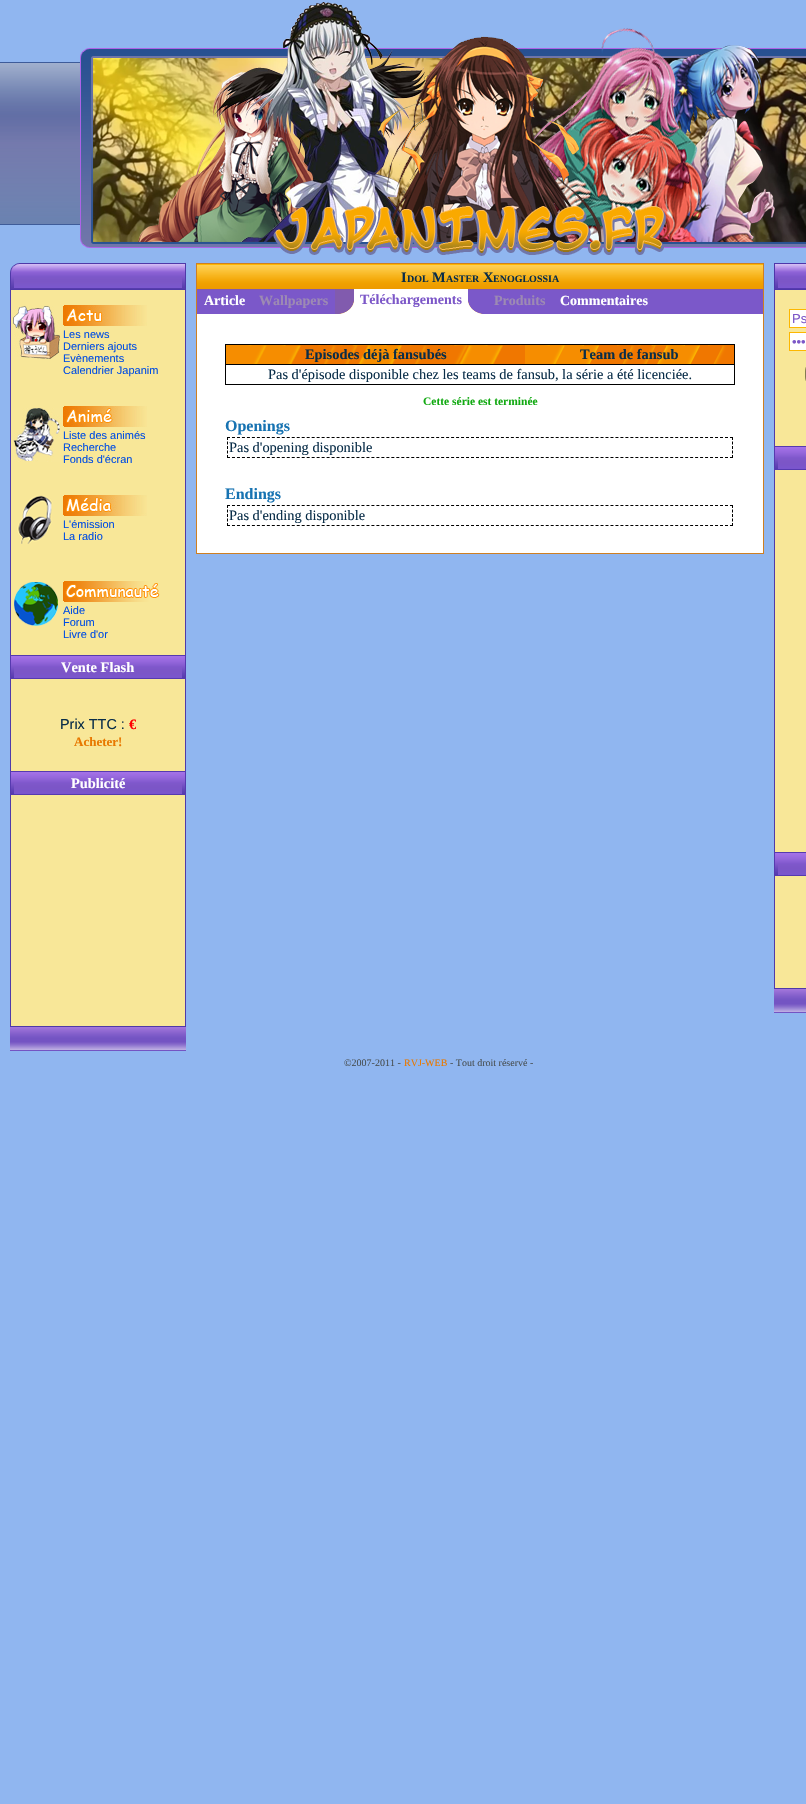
#include "include/core/SkBlurTypes.h"
#include "include/core/SkCanvas.h"
#include "include/core/SkData.h"
#include "include/core/SkFont.h"
#include "include/core/SkFontMgr.h"
#include "include/core/SkImage.h"
#include "include/core/SkMaskFilter.h"
#include "include/core/SkPaint.h"
#include "include/core/SkPathBuilder.h"
#include "include/core/SkTextBlob.h"
#include "include/effects/SkDashPathEffect.h"
#include "include/effects/SkGradientShader.h"
#include "include/utils/SkParsePath.h"

extern sk_sp<SkFontMgr> fontMgr;

void draw(SkCanvas* canvas) {
    SkPaint p;
    p.setAntiAlias(true);
    auto font = [&](const char* family, int weight, float size, bool italic = false) {
        SkFontStyle style(weight, SkFontStyle::kNormal_Width,
            italic ? SkFontStyle::kItalic_Slant : SkFontStyle::kUpright_Slant);
        SkFont result(fontMgr->matchFamilyStyle(family, style), size);
        result.setSubpixel(true);
        return result;
    };
    auto drawPhoto = [&](const char* path, float l, float t, float r, float b) {
        auto image = SkImages::DeferredFromEncodedData(SkData::MakeFromFileName(path));
        canvas->drawImageRect(image, SkRect::MakeLTRB(l, t, r, b), SkSamplingOptions());
    };
    canvas->clear(0xFF90B6F0);
    drawPhoto("media/1.png", 0, 62, 80, 225);
    drawPhoto("media/2.png", 80, 2, 806, 256);
    p.setColor(0xFFF8E798);
    canvas->drawRect(SkRect::MakeLTRB(11, 290, 185, 1026), p);
    drawPhoto("media/3.png", 10, 263, 186, 290);
    drawPhoto("media/4.png", 13, 306, 61, 359);
    p.setColor(0xFF503BA9);
    canvas->drawRect(SkRect::MakeLTRB(185, 290, 186, 655), p);
    canvas->drawRect(SkRect::MakeLTRB(10, 290, 11, 655), p);
    drawPhoto("media/5.png", 63, 305, 147, 326);
    auto font1 = font("Liberation Sans", 400, 11);
    p.setColor(0xFF004DE3);
    {
        const struct { const char* s; float x, y; } items[] = {
            {"Les news", 63, 338},
            {"Derniers ajouts", 63, 350},
            {"Evènements", 63, 362},
            {"Calendrier Japanim", 63, 374},
        };
        for (auto [s, x, y] : items) {
            canvas->drawString(s, x, y, font1, p);
        }
    }
    drawPhoto("media/6.png", 13, 408, 61, 462);
    drawPhoto("media/7.png", 63, 406, 147, 427);
    {
        const struct { const char* s; float x, y; } items[] = {
            {"Liste des animés", 63, 439},
            {"Recherche", 63, 451},
            {"Fonds d'écran", 63, 463},
        };
        for (auto [s, x, y] : items) {
            canvas->drawString(s, x, y, font1, p);
        }
    }
    drawPhoto("media/8.png", 17, 495, 53, 544);
    drawPhoto("media/9.png", 63, 495, 147, 516);
    canvas->drawString("L'émission", 63, 528, font1, p);
    canvas->drawString("La radio", 63, 540, font1, p);
    drawPhoto("media/10.png", 14, 582, 58, 626);
    drawPhoto("media/11.png", 63, 581, 160, 602);
    {
        const struct { const char* s; float x, y; } items[] = {
            {"Aide", 63, 614},
            {"Forum", 63, 626},
            {"Livre d'or", 63, 638},
        };
        for (auto [s, x, y] : items) {
            canvas->drawString(s, x, y, font1, p);
        }
    }
    drawPhoto("media/12.png", 10, 655, 186, 679);
    auto font2 = font("Liberation Serif", 700, 14.4f);
    p.setColor(0xFFFFFFFF);
    canvas->drawString("Vente Flash", 61, 672, font2, p);
    p.setColor(0xFF503BA9);
    canvas->drawRect(SkRect::MakeLTRB(185, 679, 186, 771), p);
    canvas->drawRect(SkRect::MakeLTRB(10, 679, 11, 771), p);
    auto font3 = font("Liberation Sans", 400, 14.4f);
    p.setColor(0xFF092D48);
    canvas->drawString("Prix TTC :", 60, 729, font3, p);
    p.setColor(0xFFFF0000);
    canvas->drawString("€", 129, 729, font2, p);
    auto font4 = font("Liberation Serif", 700, 13);
    p.setColor(0xFFE87800);
    canvas->drawString("Acheter!", 74, 746, font4, p);
    drawPhoto("media/12.png", 10, 771, 186, 795);
    p.setColor(0xFFFFFFFF);
    canvas->drawString("Publicité", 71, 788, font2, p);
    p.setColor(0xFF503BA9);
    canvas->drawRect(SkRect::MakeLTRB(185, 795, 186, 1026), p);
    canvas->drawRect(SkRect::MakeLTRB(10, 795, 11, 1026), p);
    drawPhoto("media/13.png", 10, 1026, 186, 1051);
    p.setColor(0xFFFFFFFF);
    canvas->drawRect(SkRect::MakeLTRB(197, 314, 763, 553), p);
    drawPhoto("media/14.png", 197, 264, 763, 289);
    p.setStyle(SkPaint::kStroke_Style);
    p.setStrokeWidth(1);
    p.setColor(0xFFCE7F23);
    canvas->drawRect(SkRect::MakeLTRB(196.5f, 263.5f, 763.5f, 553.5f), p);
    p.setStyle(SkPaint::kFill_Style);
    p.setColor(0xFF092D48);
    canvas->drawString("I", 401, 282, font2, p);
    auto font5 = font("Liberation Serif", 700, 10);
    canvas->drawString("DOL", 407, 282, font5, p);
    canvas->drawString("M", 432, 282, font2, p);
    canvas->drawString("ASTER", 446, 282, font5, p);
    canvas->drawString("X", 483, 282, font2, p);
    canvas->drawString("ENOGLOSSIA", 493, 282, font5, p);
    p.setColor(0xFF7B58C9);
    canvas->drawRect(SkRect::MakeLTRB(197, 290, 763, 314), p);
    p.setColor(0xFF815BAE);
    canvas->drawRect(SkRect::MakeLTRB(197, 289, 763, 290), p);
    auto font6 = font("Liberation Serif", 700, 14);
    p.setColor(0xFFFFFFFF);
    canvas->drawString("Article", 204, 305, font6, p);
    p.setColor(0xFF9D8AB3);
    canvas->drawString("Wallpapers", 259, 305, font6, p);
    p.setColor(0xFFFFFFFF);
    canvas->drawRect(SkRect::MakeLTRB(335, 289, 487, 314), p);
    drawPhoto("media/15.png", 335, 289, 354, 314);
    drawPhoto("media/16.png", 468, 289, 487, 314);
    p.setColor(0xFF7C57C8);
    canvas->drawString("Téléchargements", 360, 304, font6, p);
    p.setColor(0xFF9D8AB3);
    canvas->drawString("Produits", 494, 305, font6, p);
    p.setColor(0xFFFFFFFF);
    canvas->drawString("Commentaires", 560, 305, font6, p);
    {
        const struct { float l, t, r, b; SkColor color; } items[] = {
            {225, 344, 735, 345, 0xFF000000},
            {734, 344, 735, 385, 0xFF000000},
            {225, 384, 735, 385, 0xFF000000},
            {225, 344, 226, 385, 0xFF000000},
        };
        for (auto [l, t, r, b, color] : items) {
            p.setColor(color);
            canvas->drawRect(SkRect::MakeLTRB(l, t, r, b), p);
        }
    }
    drawPhoto("media/17.png", 226, 345, 525, 364);
    p.setColor(0xFF092D48);
    canvas->drawString("Episodes déjà fansubés", 305, 359, font2, p);
    drawPhoto("media/18.png", 525, 345, 734, 364);
    p.setColor(0xFF000000);
    canvas->drawRect(SkRect::MakeLTRB(225, 364, 735, 365), p);
    p.setColor(0xFF092D48);
    canvas->drawString("Team de fansub", 580, 359, font2, p);
    auto font7 = font("Liberation Serif", 400, 14.4f);
    canvas->drawString("Pas d'épisode disponible chez les teams de fansub, la série a été licenciée.", 268, 379, font7, p);
    auto font8 = font("Liberation Serif", 700, 11.5f);
    p.setColor(0xFF13AA13);
    canvas->drawString("Cette série est terminée", 423, 405, font8, p);
    auto font9 = font("Liberation Serif", 700, 16);
    p.setColor(0xFF1773B2);
    canvas->drawString("Openings", 225, 431, font9, p);
    p.setStyle(SkPaint::kStroke_Style);
    p.setColor(0xFF000000);
    p.setPathEffect(SkDashPathEffect::Make({{3, 1.98f}}, 0));
    canvas->drawPath(SkPathBuilder().moveTo(227, 437.5f).lineTo(733, 437.5f).detach(), p);
    p.setPathEffect(nullptr);
    p.setPathEffect(SkDashPathEffect::Make({{3, 1.5f}}, 0));
    canvas->drawPath(SkPathBuilder().moveTo(732.5f, 437).lineTo(732.5f, 458).detach(), p);
    p.setPathEffect(nullptr);
    p.setPathEffect(SkDashPathEffect::Make({{3, 1.98f}}, 0));
    canvas->drawPath(SkPathBuilder().moveTo(227, 457.5f).lineTo(733, 457.5f).detach(), p);
    p.setPathEffect(nullptr);
    p.setPathEffect(SkDashPathEffect::Make({{3, 1.5f}}, 0));
    canvas->drawPath(SkPathBuilder().moveTo(227.5f, 437).lineTo(227.5f, 458).detach(), p);
    p.setPathEffect(nullptr);
    p.setStyle(SkPaint::kFill_Style);
    p.setColor(0xFF092D48);
    canvas->drawString("Pas d'opening disponible", 229, 452, font7, p);
    p.setColor(0xFF1773B2);
    canvas->drawString("Endings", 225, 499, font9, p);
    p.setStyle(SkPaint::kStroke_Style);
    p.setColor(0xFF000000);
    p.setPathEffect(SkDashPathEffect::Make({{3, 1.98f}}, 0));
    canvas->drawPath(SkPathBuilder().moveTo(227, 505.5f).lineTo(733, 505.5f).detach(), p);
    p.setPathEffect(nullptr);
    p.setPathEffect(SkDashPathEffect::Make({{3, 1.5f}}, 0));
    canvas->drawPath(SkPathBuilder().moveTo(732.5f, 505).lineTo(732.5f, 526).detach(), p);
    p.setPathEffect(nullptr);
    p.setPathEffect(SkDashPathEffect::Make({{3, 1.98f}}, 0));
    canvas->drawPath(SkPathBuilder().moveTo(227, 525.5f).lineTo(733, 525.5f).detach(), p);
    p.setPathEffect(nullptr);
    p.setPathEffect(SkDashPathEffect::Make({{3, 1.5f}}, 0));
    canvas->drawPath(SkPathBuilder().moveTo(227.5f, 505).lineTo(227.5f, 526).detach(), p);
    p.setPathEffect(nullptr);
    p.setStyle(SkPaint::kFill_Style);
    p.setColor(0xFF092D48);
    canvas->drawString("Pas d'ending disponible", 229, 520, font7, p);
    p.setColor(0xFFF8E798);
    canvas->drawRect(SkRect::MakeLTRB(775, 290, 806, 988), p);
    drawPhoto("media/19.png", 774, 263, 806, 290);
    p.setColor(0xFF503BA9);
    canvas->drawRect(SkRect::MakeLTRB(774, 290, 775, 446), p);
    p.setColor(0xFFFFFFFF);
    canvas->drawRect(SkRect::MakeLTRB(789.5f, 309.5f, 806.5f, 327.5f), p);
    p.setStyle(SkPaint::kStroke_Style);
    p.setColor(0xFFFDB700);
    canvas->drawRect(SkRect::MakeLTRB(789.5f, 309.5f, 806.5f, 327.5f), p);
    auto font10 = font("Liberation Sans", 400, 13);
    p.setStyle(SkPaint::kFill_Style);
    p.setColor(0xFF7C57C8);
    canvas->drawString("Ps", 792, 323, font10, p);
    p.setColor(0xFFFFFFFF);
    canvas->drawRect(SkRect::MakeLTRB(789.5f, 332.5f, 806.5f, 350.5f), p);
    p.setStyle(SkPaint::kStroke_Style);
    p.setColor(0xFFFDB700);
    canvas->drawRect(SkRect::MakeLTRB(789.5f, 332.5f, 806.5f, 350.5f), p);
    p.setStyle(SkPaint::kFill_Style);
    p.setColor(0xFF7C57C8);
    canvas->drawString("•••", 792, 346, font10, p);
    drawPhoto("media/20.png", 805, 367, 806, 381);
    drawPhoto("media/21.png", 774, 446, 806, 470);
    p.setColor(0xFF503BA9);
    canvas->drawRect(SkRect::MakeLTRB(774, 470, 775, 852), p);
    drawPhoto("media/21.png", 774, 852, 806, 876);
    canvas->drawRect(SkRect::MakeLTRB(774, 876, 775, 988), p);
    drawPhoto("media/22.png", 774, 988, 806, 1013);
    auto font11 = font("Liberation Serif", 400, 10);
    p.setColor(0xFF484F52);
    canvas->drawString("©2007-2011 -", 344, 1066, font11, p);
    p.setColor(0xFFE87800);
    canvas->drawString("RVJ-WEB", 404, 1066, font11, p);
    p.setColor(0xFF484F52);
    canvas->drawString("- Tout droit réservé -", 450, 1066, font11, p);
}
